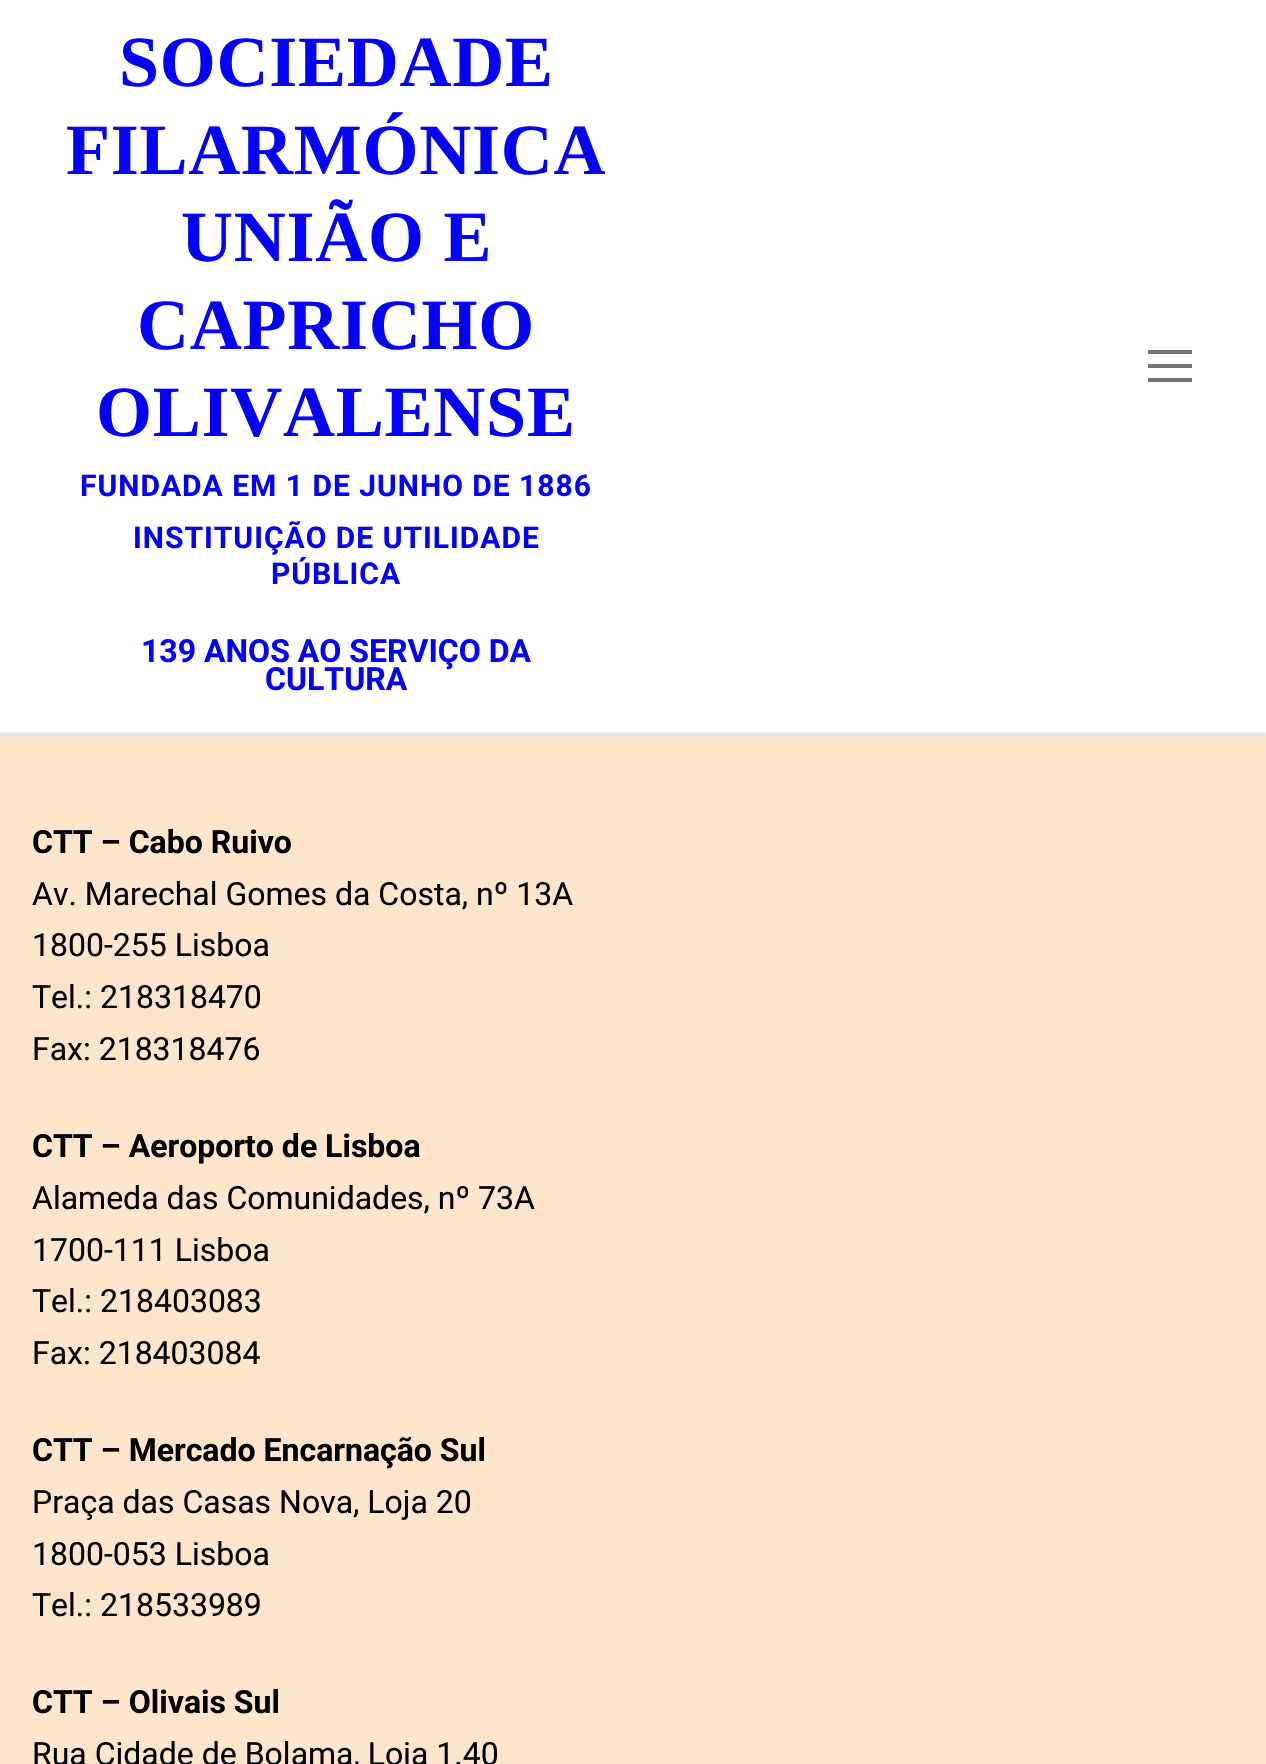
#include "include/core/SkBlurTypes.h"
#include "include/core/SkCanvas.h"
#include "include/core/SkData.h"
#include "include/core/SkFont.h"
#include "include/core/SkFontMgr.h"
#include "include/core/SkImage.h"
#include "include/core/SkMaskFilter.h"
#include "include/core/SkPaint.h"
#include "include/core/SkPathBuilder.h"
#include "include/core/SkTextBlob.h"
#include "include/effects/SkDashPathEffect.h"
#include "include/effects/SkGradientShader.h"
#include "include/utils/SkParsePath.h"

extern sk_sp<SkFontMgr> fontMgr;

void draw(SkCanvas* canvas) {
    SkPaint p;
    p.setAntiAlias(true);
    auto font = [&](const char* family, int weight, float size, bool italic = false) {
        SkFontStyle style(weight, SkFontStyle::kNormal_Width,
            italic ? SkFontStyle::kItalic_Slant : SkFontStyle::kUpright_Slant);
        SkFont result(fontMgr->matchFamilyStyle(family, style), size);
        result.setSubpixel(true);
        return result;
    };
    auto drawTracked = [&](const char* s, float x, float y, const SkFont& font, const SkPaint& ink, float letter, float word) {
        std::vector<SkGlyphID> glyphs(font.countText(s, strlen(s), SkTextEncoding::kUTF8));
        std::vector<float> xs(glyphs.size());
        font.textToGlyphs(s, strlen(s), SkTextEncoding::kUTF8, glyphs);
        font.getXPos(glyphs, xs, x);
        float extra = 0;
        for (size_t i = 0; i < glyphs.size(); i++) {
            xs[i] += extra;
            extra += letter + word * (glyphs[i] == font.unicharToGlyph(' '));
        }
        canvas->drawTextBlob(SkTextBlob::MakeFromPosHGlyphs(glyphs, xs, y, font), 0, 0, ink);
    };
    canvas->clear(0xFFFFFFFF);
    p.setColor(0xFFFDE5CB);
    canvas->drawRect(SkRect::MakeLTRB(0, 734, 1266, 1764), p);
    canvas->save();
    canvas->clipRect(SkRect::MakeLTRB(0, 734, 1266, 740));
    p.setColor(0xFFE1E5EA);
    p.setMaskFilter(SkMaskFilter::MakeBlur(kNormal_SkBlurStyle, 2));
    canvas->drawRect(SkRect::MakeLTRB(0, 2, 1266, 736), p);
    p.setMaskFilter(nullptr);
    canvas->restore();
    p.setColor(0xFFEAECEE);
    canvas->drawRect(SkRect::MakeLTRB(0, 732, 1266, 734), p);
    auto font1 = font("Liberation Serif", 700, 72);
    p.setColor(0xFF0401FC);
    {
        const struct { const char* s; float x, y; } items[] = {
            {"SOCIEDADE", 119, 86},
            {"FILARMÓNICA", 66, 174},
            {"UNIÃO E", 181, 261},
            {"CAPRICHO", 137, 349},
            {"OLIVALENSE", 96, 436},
        };
        for (auto [s, x, y] : items) {
            drawTracked(s, x, y, font1, p, 0.75f, 0);
        }
    }
    auto font2 = font("Roboto", 700, 30);
    {
        const struct { const char* s; float x, y; } items[] = {
            {"FUNDADA EM 1 DE JUNHO DE 1886", 80, 496},
            {"INSTITUIÇÃO DE UTILIDADE", 133, 548},
            {"PÚBLICA", 271, 584},
        };
        for (auto [s, x, y] : items) {
            drawTracked(s, x, y, font2, p, 1, 0);
        }
    }
    auto font3 = font("Roboto", 700, 32);
    canvas->drawString("139 ANOS AO SERVIÇO DA", 141, 662, font3, p);
    canvas->drawString("CULTURA", 265, 690, font3, p);
    {
        const struct { float l, t, r, b; SkColor color; } items[] = {
            {1148, 364, 1192, 368, 0xFF737373},
            {1148, 350, 1192, 354, 0xFF737373},
            {1148, 378, 1192, 382, 0xFF737373},
        };
        for (auto [l, t, r, b, color] : items) {
            p.setColor(color);
            canvas->drawRect(SkRect::MakeLTRB(l, t, r, b), p);
        }
    }
    p.setColor(0xFF000000);
    canvas->drawString("CTT – Cabo Ruivo", 32, 853, font3, p);
    auto font4 = font("Roboto", 400, 32);
    {
        const struct { const char* s; float x, y; } items[] = {
            {"Av. Marechal Gomes da Costa, nº 13A", 32, 905},
            {"1800-255 Lisboa", 32, 956},
            {"Tel.: 218318470", 32, 1008},
            {"Fax: 218318476", 32, 1060},
        };
        for (auto [s, x, y] : items) {
            canvas->drawString(s, x, y, font4, p);
        }
    }
    canvas->drawString("CTT – Aeroporto de Lisboa", 32, 1157, font3, p);
    {
        const struct { const char* s; float x, y; } items[] = {
            {"Alameda das Comunidades, nº 73A", 32, 1209},
            {"1700-111 Lisboa", 32, 1261},
            {"Tel.: 218403083", 32, 1312},
            {"Fax: 218403084", 32, 1364},
        };
        for (auto [s, x, y] : items) {
            canvas->drawString(s, x, y, font4, p);
        }
    }
    canvas->drawString("CTT – Mercado Encarnação Sul", 32, 1461, font3, p);
    {
        const struct { const char* s; float x, y; } items[] = {
            {"Praça das Casas Nova, Loja 20", 32, 1513},
            {"1800-053 Lisboa", 32, 1565},
            {"Tel.: 218533989", 32, 1616},
        };
        for (auto [s, x, y] : items) {
            canvas->drawString(s, x, y, font4, p);
        }
    }
    canvas->drawString("CTT – Olivais Sul", 32, 1713, font3, p);
    canvas->drawString("Rua Cidade de Bolama, Loja 1.40", 32, 1765, font4, p);
}
